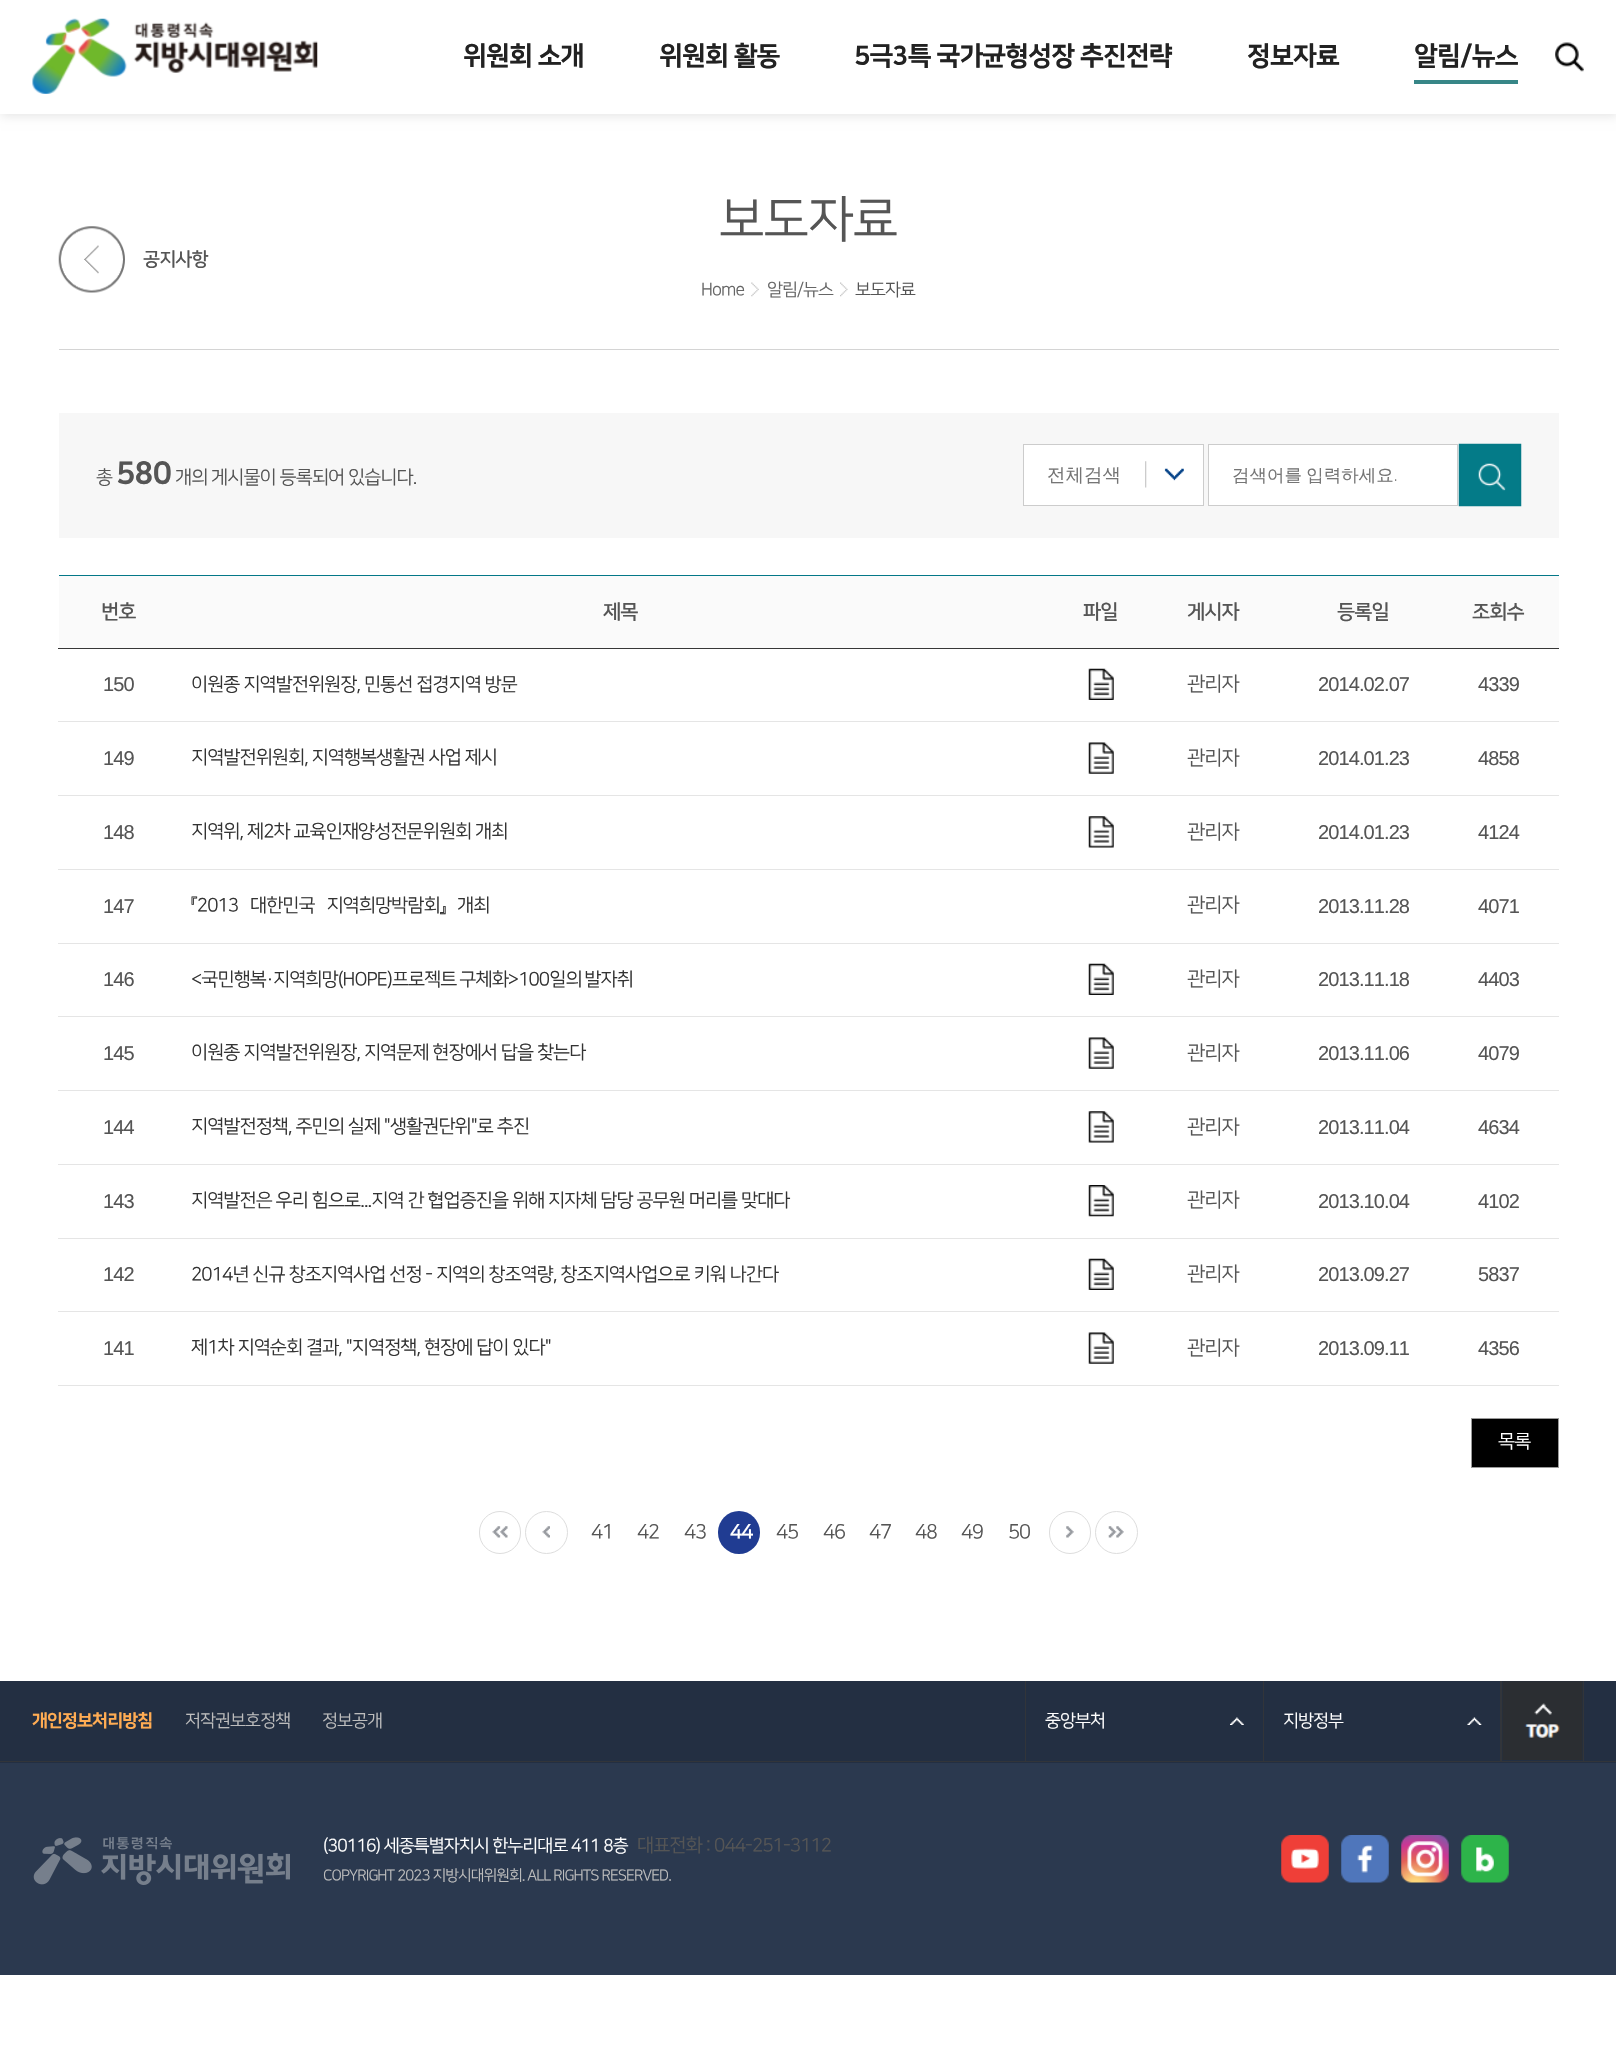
#include "include/core/SkBlurTypes.h"
#include "include/core/SkCanvas.h"
#include "include/core/SkData.h"
#include "include/core/SkFont.h"
#include "include/core/SkFontMgr.h"
#include "include/core/SkImage.h"
#include "include/core/SkMaskFilter.h"
#include "include/core/SkPaint.h"
#include "include/core/SkPathBuilder.h"
#include "include/core/SkTextBlob.h"
#include "include/effects/SkDashPathEffect.h"
#include "include/effects/SkGradientShader.h"
#include "include/utils/SkParsePath.h"

extern sk_sp<SkFontMgr> fontMgr;

void draw(SkCanvas* canvas) {
    SkPaint p;
    p.setAntiAlias(true);
    auto font = [&](const char* family, int weight, float size, bool italic = false) {
        SkFontStyle style(weight, SkFontStyle::kNormal_Width,
            italic ? SkFontStyle::kItalic_Slant : SkFontStyle::kUpright_Slant);
        SkFont result(fontMgr->matchFamilyStyle(family, style), size);
        result.setSubpixel(true);
        return result;
    };
    auto drawTracked = [&](const char* s, float x, float y, const SkFont& font, const SkPaint& ink, float letter, float word) {
        std::vector<SkGlyphID> glyphs(font.countText(s, strlen(s), SkTextEncoding::kUTF8));
        std::vector<float> xs(glyphs.size());
        font.textToGlyphs(s, strlen(s), SkTextEncoding::kUTF8, glyphs);
        font.getXPos(glyphs, xs, x);
        float extra = 0;
        for (size_t i = 0; i < glyphs.size(); i++) {
            xs[i] += extra;
            extra += letter + word * (glyphs[i] == font.unicharToGlyph(' '));
        }
        canvas->drawTextBlob(SkTextBlob::MakeFromPosHGlyphs(glyphs, xs, y, font), 0, 0, ink);
    };
    auto drawPhoto = [&](const char* path, float l, float t, float r, float b) {
        auto image = SkImages::DeferredFromEncodedData(SkData::MakeFromFileName(path));
        canvas->drawImageRect(image, SkRect::MakeLTRB(l, t, r, b), SkSamplingOptions());
    };
    canvas->clear(0xFFFFFFFF);
    p.setColor(0x1A000000);
    p.setMaskFilter(SkMaskFilter::MakeBlur(kNormal_SkBlurStyle, 5));
    canvas->drawRect(SkRect::MakeLTRB(1, 3, 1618, 116), p);
    p.setMaskFilter(nullptr);
    p.setColor(0xFFFFFFFF);
    canvas->drawRect(SkRect::MakeLTRB(0, 0, 1616, 114), p);
    drawPhoto("media/1.png", 32, 18, 318, 94);
    auto font1 = font("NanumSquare", 800, 26.25f);
    p.setColor(0xFF222222);
    {
        const struct { const char* s; float x, y; } items[] = {
            {"위원회 소개", 463, 64},
            {"위원회 활동", 659, 64},
            {"5극3특 국가균형성장 추진전략", 854, 64},
            {"정보자료", 1247, 64},
        };
        for (auto [s, x, y] : items) {
            drawTracked(s, x, y, font1, p, -0.9f, 0);
        }
    }
    p.setColor(0xFF378687);
    canvas->drawRect(SkRect::MakeLTRB(1414, 80, 1518, 84), p);
    p.setColor(0xFF222222);
    drawTracked("알림/뉴스", 1414, 64, font1, p, -0.9f, 0);
    drawPhoto("media/2.png", 1555, 42, 1584, 72);
    p.setColor(0xFFD4D4D4);
    canvas->drawRect(SkRect::MakeLTRB(59, 349, 1559, 350), p);
    auto font2 = font("NanumSquare", 400, 50);
    p.setColor(0xFF555555);
    drawTracked("보도자료", 719, 235, font2, p, -0.9f, 0);
    drawPhoto("media/3.png", 58, 226, 125, 293);
    auto font3 = font("NanumSquare", 700, 18.75f);
    drawTracked("공지사항", 143, 265, font3, p, -0.9f, 0);
    auto font4 = font("NanumSquare", 400, 17.5f);
    p.setColor(0xFF666666);
    drawTracked("Home", 701, 295, font4, p, -0.9f, 0);
    drawPhoto("media/4.png", 751, 282, 759, 297);
    drawTracked("알림/뉴스", 767, 295, font4, p, -0.9f, 0);
    drawPhoto("media/5.png", 840, 282, 848, 297);
    p.setColor(0xFF555555);
    drawTracked("보도자료", 855, 295, font4, p, -0.9f, 0);
    p.setColor(0xFFF7F7F7);
    canvas->drawRect(SkRect::MakeLTRB(59, 413, 1559, 538), p);
    auto font5 = font("NanumSquare", 400, 18.75f);
    p.setColor(0xFF555555);
    drawTracked("총", 96, 483, font5, p, -0.9f, 0);
    auto font6 = font("NanumSquare", 800, 31);
    drawTracked("580", 116, 483, font6, p, -0.9f, 0);
    drawTracked("개의 게시물이 등록되어 있습니다.", 175, 483, font5, p, -0.9f, 0);
    p.setColor(0xFFFFFFFF);
    canvas->drawRect(SkRect::MakeLTRB(1024, 445, 1203, 505), p);
    drawPhoto("media/6.png", 1145, 461, 1184, 488);
    p.setStyle(SkPaint::kStroke_Style);
    p.setStrokeWidth(1);
    p.setColor(0xFFCCCCCC);
    canvas->drawRect(SkRect::MakeLTRB(1023.5f, 444.5f, 1203.5f, 505.5f), p);
    auto font7 = font("WenQuanYi Zen Hei", 500, 18.5f);
    p.setStyle(SkPaint::kFill_Style);
    p.setColor(0xFF757575);
    canvas->drawString("전체검색", 1047, 481, font7, p);
    p.setColor(0xFFFFFFFF);
    canvas->drawRect(SkRect::MakeLTRB(1208.5f, 444.5f, 1457.5f, 505.5f), p);
    p.setStyle(SkPaint::kStroke_Style);
    p.setColor(0xFFCCCCCC);
    canvas->drawRect(SkRect::MakeLTRB(1208.5f, 444.5f, 1457.5f, 505.5f), p);
    auto font8 = font("WenQuanYi Zen Hei", 500, 17.5f);
    p.setStyle(SkPaint::kFill_Style);
    p.setColor(0xFF757575);
    drawTracked("검색어를 입력하세요", 1232, 481, font8, p, 0, -1);
    auto font9 = font("Raleway", 400, 17.5f);
    canvas->drawString(".", 1394, 481, font9, p);
    drawPhoto("media/7.png", 1458, 443, 1522, 507);
    p.setColor(0xFF047888);
    canvas->drawRect(SkRect::MakeLTRB(59, 575, 1559, 576), p);
    p.setColor(0xFFFAFAFA);
    canvas->drawRect(SkRect::MakeLTRB(59, 576, 1559, 648), p);
    auto font10 = font("NanumSquare", 700, 20);
    p.setColor(0xFF555555);
    {
        const struct { const char* s; float x, y; } items[] = {
            {"번호", 101, 618},
            {"제목", 603, 618},
            {"파일", 1083, 618},
            {"게시자", 1187, 618},
            {"등록일", 1337, 618},
        };
        for (auto [s, x, y] : items) {
            drawTracked(s, x, y, font10, p, -0.9f, 0);
        }
    }
    p.setColor(0xFF373737);
    canvas->drawRect(SkRect::MakeLTRB(58, 648, 1559, 649), p);
    p.setColor(0xFF555555);
    drawTracked("조회수", 1472, 618, font10, p, -0.9f, 0);
    auto font11 = font("Liberation Sans", 400, 20);
    drawTracked("150", 103, 691, font11, p, -0.9f, 0);
    p.setColor(0xFF333333);
    drawTracked("이원종 지역발전위원장, 민통선 접경지역 방문", 191, 690, font5, p, -0.9f, 0);
    drawPhoto("media/8.png", 1088, 668, 1114, 700);
    auto font12 = font("NanumSquare", 400, 20);
    p.setColor(0xFF555555);
    drawTracked("관리자", 1187, 690, font12, p, -0.9f, 0);
    drawTracked("2014.02.07", 1318, 691, font11, p, -0.9f, 0);
    p.setColor(0xFFE5E5E5);
    canvas->drawRect(SkRect::MakeLTRB(58, 721, 1559, 722), p);
    p.setColor(0xFF555555);
    drawTracked("4339", 1478, 691, font11, p, -0.9f, 0);
    drawTracked("149", 103, 765, font11, p, -0.9f, 0);
    p.setColor(0xFF333333);
    drawTracked("지역발전위원회, 지역행복생활권 사업 제시", 191, 763, font5, p, -0.9f, 0);
    drawPhoto("media/9.png", 1088, 742, 1114, 774);
    p.setColor(0xFF555555);
    drawTracked("관리자", 1187, 764, font12, p, -0.9f, 0);
    drawTracked("2014.01.23", 1318, 765, font11, p, -0.9f, 0);
    p.setColor(0xFFE5E5E5);
    canvas->drawRect(SkRect::MakeLTRB(58, 795, 1559, 796), p);
    p.setColor(0xFF555555);
    drawTracked("4858", 1478, 765, font11, p, -0.9f, 0);
    drawTracked("148", 103, 839, font11, p, -0.9f, 0);
    p.setColor(0xFF333333);
    drawTracked("지역위, 제2차 교육인재양성전문위원회 개최", 191, 837, font5, p, -0.9f, 0);
    drawPhoto("media/10.png", 1088, 816, 1114, 848);
    p.setColor(0xFF555555);
    drawTracked("관리자", 1187, 838, font12, p, -0.9f, 0);
    drawTracked("2014.01.23", 1318, 839, font11, p, -0.9f, 0);
    p.setColor(0xFFE5E5E5);
    canvas->drawRect(SkRect::MakeLTRB(58, 869, 1559, 870), p);
    p.setColor(0xFF555555);
    drawTracked("4124", 1478, 839, font11, p, -0.9f, 0);
    drawTracked("147", 103, 913, font11, p, -0.9f, 0);
    p.setColor(0xFF333333);
    drawTracked("『2013 대한민국 지역희망박람회』 개최", 191, 911, font5, p, -0.9f, 8);
    p.setColor(0xFF555555);
    drawTracked("관리자", 1187, 911, font12, p, -0.9f, 0);
    drawTracked("2013.11.28", 1318, 913, font11, p, -0.9f, 0);
    p.setColor(0xFFE5E5E5);
    canvas->drawRect(SkRect::MakeLTRB(58, 943, 1559, 944), p);
    p.setColor(0xFF555555);
    drawTracked("4071", 1478, 913, font11, p, -0.9f, 0);
    drawTracked("146", 103, 986, font11, p, -0.9f, 0);
    p.setColor(0xFF333333);
    drawTracked("<국민행복·지역희망(HOPE)프로젝트 구체화>100일의 발자취", 191, 985, font5, p, -0.9f, -1);
    drawPhoto("media/8.png", 1088, 963, 1114, 995);
    p.setColor(0xFF555555);
    drawTracked("관리자", 1187, 985, font12, p, -0.9f, 0);
    drawTracked("2013.11.18", 1318, 986, font11, p, -0.9f, 0);
    p.setColor(0xFFE5E5E5);
    canvas->drawRect(SkRect::MakeLTRB(58, 1016, 1559, 1017), p);
    p.setColor(0xFF555555);
    drawTracked("4403", 1478, 986, font11, p, -0.9f, 0);
    drawTracked("145", 103, 1060, font11, p, -0.9f, 0);
    p.setColor(0xFF333333);
    drawTracked("이원종 지역발전위원장, 지역문제 현장에서 답을 찾는다", 191, 1058, font5, p, -0.9f, 0);
    drawPhoto("media/9.png", 1088, 1037, 1114, 1069);
    p.setColor(0xFF555555);
    drawTracked("관리자", 1187, 1059, font12, p, -0.9f, 0);
    drawTracked("2013.11.06", 1318, 1060, font11, p, -0.9f, 0);
    p.setColor(0xFFE5E5E5);
    canvas->drawRect(SkRect::MakeLTRB(58, 1090, 1559, 1091), p);
    p.setColor(0xFF555555);
    drawTracked("4079", 1478, 1060, font11, p, -0.9f, 0);
    drawTracked("144", 103, 1134, font11, p, -0.9f, 0);
    p.setColor(0xFF333333);
    drawTracked("지역발전정책, 주민의 실제 \"생활권단위\"로 추진", 191, 1132, font5, p, -0.9f, 0);
    drawPhoto("media/10.png", 1088, 1111, 1114, 1143);
    p.setColor(0xFF555555);
    drawTracked("관리자", 1187, 1133, font12, p, -0.9f, 0);
    drawTracked("2013.11.04", 1318, 1134, font11, p, -0.9f, 0);
    p.setColor(0xFFE5E5E5);
    canvas->drawRect(SkRect::MakeLTRB(58, 1164, 1559, 1165), p);
    p.setColor(0xFF555555);
    drawTracked("4634", 1478, 1134, font11, p, -0.9f, 0);
    drawTracked("143", 103, 1208, font11, p, -0.9f, 0);
    p.setColor(0xFF333333);
    drawTracked("지역발전은 우리 힘으로...지역 간 협업증진을 위해 지자체 담당 공무원 머리를 맞대다", 191, 1206, font5, p, -0.9f, 0);
    drawPhoto("media/11.png", 1088, 1185, 1114, 1217);
    p.setColor(0xFF555555);
    drawTracked("관리자", 1187, 1206, font12, p, -0.9f, 0);
    drawTracked("2013.10.04", 1318, 1208, font11, p, -0.9f, 0);
    p.setColor(0xFFE5E5E5);
    canvas->drawRect(SkRect::MakeLTRB(58, 1238, 1559, 1239), p);
    p.setColor(0xFF555555);
    drawTracked("4102", 1478, 1208, font11, p, -0.9f, 0);
    drawTracked("142", 103, 1281, font11, p, -0.9f, 0);
    p.setColor(0xFF333333);
    drawTracked("2014년 신규 창조지역사업 선정 - 지역의 창조역량, 창조지역사업으로 키워 나간다", 191, 1280, font5, p, -0.9f, 0);
    drawPhoto("media/8.png", 1088, 1258, 1114, 1290);
    p.setColor(0xFF555555);
    drawTracked("관리자", 1187, 1280, font12, p, -0.9f, 0);
    drawTracked("2013.09.27", 1318, 1281, font11, p, -0.9f, 0);
    p.setColor(0xFFE5E5E5);
    canvas->drawRect(SkRect::MakeLTRB(58, 1311, 1559, 1312), p);
    p.setColor(0xFF555555);
    drawTracked("5837", 1478, 1281, font11, p, -0.9f, 0);
    drawTracked("141", 103, 1355, font11, p, -0.9f, 0);
    p.setColor(0xFF333333);
    drawTracked("제1차 지역순회 결과, \"지역정책, 현장에 답이 있다\"", 191, 1353, font5, p, -0.9f, 0);
    drawPhoto("media/9.png", 1088, 1332, 1114, 1364);
    p.setColor(0xFF555555);
    drawTracked("관리자", 1187, 1354, font12, p, -0.9f, 0);
    drawTracked("2013.09.11", 1318, 1355, font11, p, -0.9f, 0);
    p.setColor(0xFFE5E5E5);
    canvas->drawRect(SkRect::MakeLTRB(58, 1385, 1559, 1386), p);
    p.setColor(0xFF555555);
    drawTracked("4356", 1478, 1355, font11, p, -0.9f, 0);
    p.setColor(0xFF000000);
    canvas->drawRect(SkRect::MakeLTRB(1471.5f, 1418.5f, 1558.5f, 1467.5f), p);
    p.setStyle(SkPaint::kStroke_Style);
    p.setColor(0xFF9A9A9A);
    canvas->drawRect(SkRect::MakeLTRB(1471.5f, 1418.5f, 1558.5f, 1467.5f), p);
    p.setStyle(SkPaint::kFill_Style);
    p.setColor(0xFFFFFFFF);
    drawTracked("목록", 1498, 1447, font5, p, -0.9f, 0);
    drawPhoto("media/12.png", 492, 1526, 508, 1538);
    p.setStyle(SkPaint::kStroke_Style);
    p.setColor(0xFFDDDDDD);
    canvas->drawRoundRect(SkRect::MakeLTRB(479.5f, 1511.5f, 520.5f, 1553.5f), 20.5f, 20.5f, p);
    drawPhoto("media/13.png", 542, 1526, 550, 1538);
    canvas->drawCircle(546.5f, 1532.5f, 21, p);
    p.setStyle(SkPaint::kFill_Style);
    p.setColor(0xFF555555);
    {
        const struct { const char* s; float x, y; } items[] = {
            {"41", 591, 1538},
            {"42", 637, 1538},
            {"43", 684, 1538},
        };
        for (auto [s, x, y] : items) {
            drawTracked(s, x, y, font12, p, -0.9f, 0);
        }
    }
    p.setColor(0xFF203C92);
    canvas->drawRoundRect(SkRect::MakeLTRB(718, 1511, 760, 1554), 21, 21, p);
    p.setColor(0xFFFFFFFF);
    drawTracked("44", 730, 1538, font10, p, -0.9f, 0);
    p.setColor(0xFF555555);
    {
        const struct { const char* s; float x, y; } items[] = {
            {"45", 776, 1538},
            {"46", 823, 1538},
            {"47", 869, 1538},
            {"48", 915, 1538},
            {"49", 961, 1538},
            {"50", 1008, 1538},
        };
        for (auto [s, x, y] : items) {
            drawTracked(s, x, y, font12, p, -0.9f, 0);
        }
    }
    drawPhoto("media/14.png", 1066, 1526, 1074, 1538);
    p.setStyle(SkPaint::kStroke_Style);
    p.setColor(0xFFDDDDDD);
    canvas->drawRoundRect(SkRect::MakeLTRB(1049.5f, 1511.5f, 1090.5f, 1553.5f), 20.5f, 20.5f, p);
    drawPhoto("media/15.png", 1108, 1526, 1124, 1538);
    canvas->drawCircle(1116.5f, 1532.5f, 21, p);
    p.setStyle(SkPaint::kFill_Style);
    {
        const struct { float l, t, r, b; SkColor color; } items[] = {
            {0, 1763, 1616, 1975, 0xFF2B394F},
            {0, 1681, 1616, 1763, 0xFF232F42},
            {0, 1761, 1616, 1762, 0xFF32353A},
        };
        for (auto [l, t, r, b, color] : items) {
            p.setColor(color);
            canvas->drawRect(SkRect::MakeLTRB(l, t, r, b), p);
        }
    }
    auto font13 = font("NanumSquare", 800, 17.5f);
    p.setColor(0xFFFFAC53);
    drawTracked("개인정보처리방침", 32, 1726, font13, p, -0.9f, 0);
    p.setColor(0xFFBDBDBD);
    drawTracked("저작권보호정책", 185, 1726, font4, p, -0.9f, 0);
    drawTracked("정보공개", 322, 1726, font4, p, -0.9f, 0);
    p.setColor(0xFF32353A);
    canvas->drawRect(SkRect::MakeLTRB(1025, 1681, 1026, 1761), p);
    canvas->drawRect(SkRect::MakeLTRB(1263, 1681, 1264, 1761), p);
    p.setColor(0xFFFFFFFF);
    drawTracked("중앙부처", 1045, 1726, font4, p, -0.9f, 0);
    drawPhoto("media/16.png", 1230, 1717, 1244, 1725);
    drawTracked("지방정부", 1283, 1726, font4, p, -0.9f, 0);
    drawPhoto("media/17.png", 1467, 1717, 1482, 1725);
    p.setColor(0xFF32353A);
    canvas->drawRect(SkRect::MakeLTRB(1583, 1681, 1584, 1761), p);
    canvas->drawRect(SkRect::MakeLTRB(1500, 1681, 1502, 1761), p);
    drawPhoto("media/18.png", 1502, 1681, 1583, 1760);
    drawPhoto("media/19.png", 33, 1837, 290, 1885);
    p.setColor(0xFFFFFFFF);
    drawTracked("(30116) 세종특별자치시 한누리대로 411 8층", 323, 1851, font4, p, -0.9f, 0);
    p.setColor(0xFF555555);
    drawTracked("대표전화 : 044-251-3112", 637, 1851, font5, p, -0.9f, 0);
    auto font14 = font("NanumSquare", 400, 15);
    p.setColor(0xFFBDBDBD);
    drawTracked("COPYRIGHT 2023 지방시대위원회. ALL RIGHTS RESERVED.", 323, 1880, font14, p, -0.9f, 0);
    drawPhoto("media/20.png", 1281, 1835, 1329, 1883);
    drawPhoto("media/21.png", 1341, 1835, 1389, 1883);
    drawPhoto("media/22.png", 1401, 1835, 1449, 1883);
    drawPhoto("media/23.png", 1461, 1835, 1509, 1883);
}
